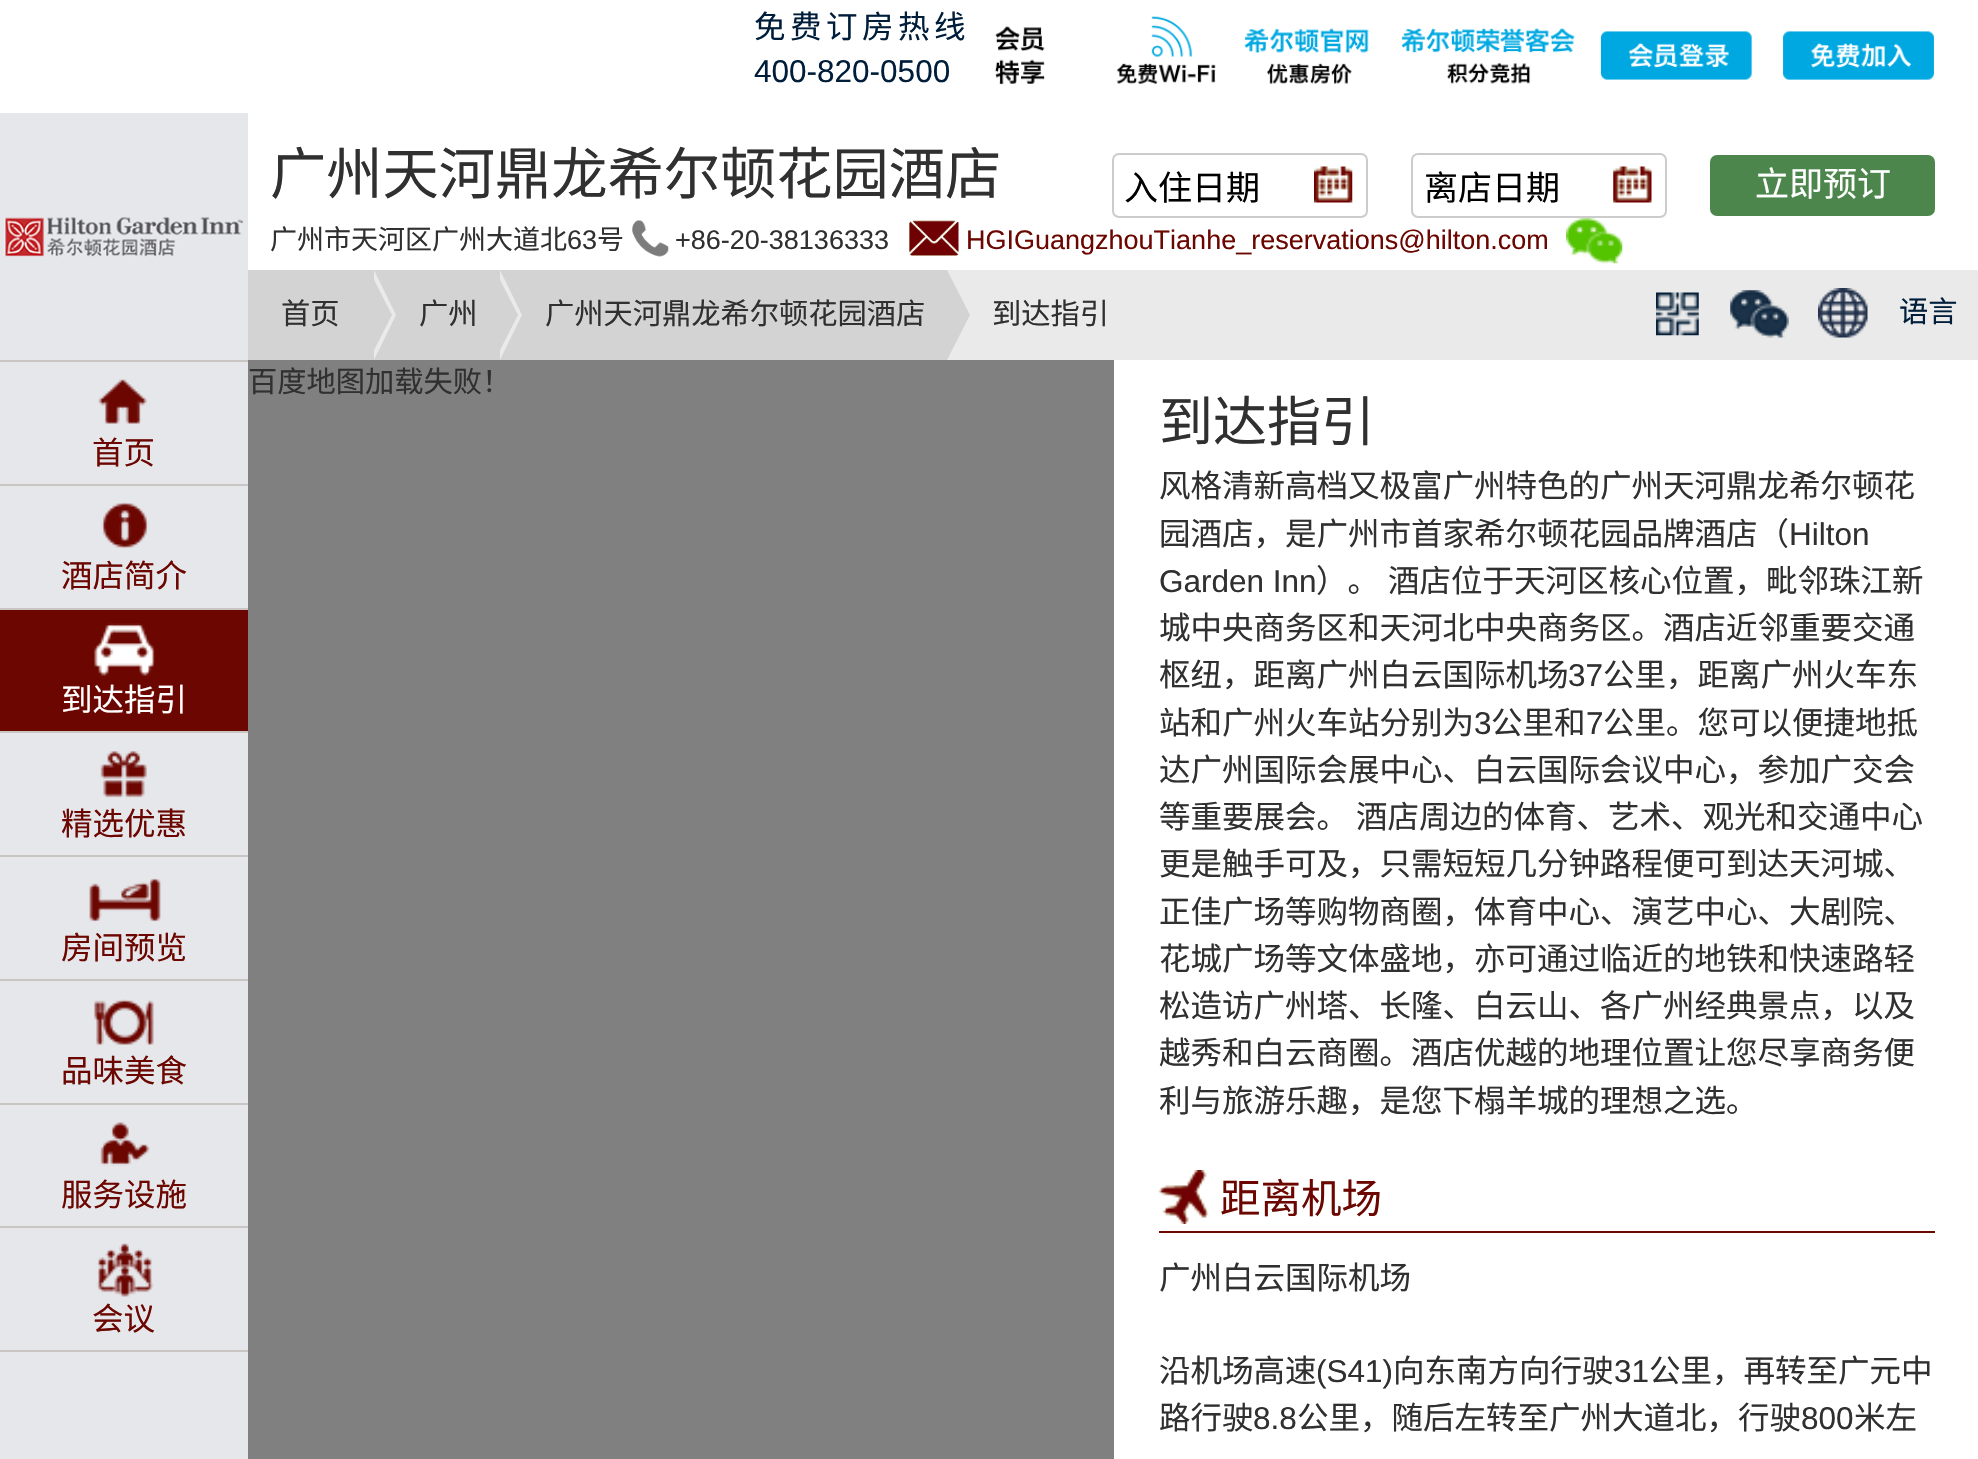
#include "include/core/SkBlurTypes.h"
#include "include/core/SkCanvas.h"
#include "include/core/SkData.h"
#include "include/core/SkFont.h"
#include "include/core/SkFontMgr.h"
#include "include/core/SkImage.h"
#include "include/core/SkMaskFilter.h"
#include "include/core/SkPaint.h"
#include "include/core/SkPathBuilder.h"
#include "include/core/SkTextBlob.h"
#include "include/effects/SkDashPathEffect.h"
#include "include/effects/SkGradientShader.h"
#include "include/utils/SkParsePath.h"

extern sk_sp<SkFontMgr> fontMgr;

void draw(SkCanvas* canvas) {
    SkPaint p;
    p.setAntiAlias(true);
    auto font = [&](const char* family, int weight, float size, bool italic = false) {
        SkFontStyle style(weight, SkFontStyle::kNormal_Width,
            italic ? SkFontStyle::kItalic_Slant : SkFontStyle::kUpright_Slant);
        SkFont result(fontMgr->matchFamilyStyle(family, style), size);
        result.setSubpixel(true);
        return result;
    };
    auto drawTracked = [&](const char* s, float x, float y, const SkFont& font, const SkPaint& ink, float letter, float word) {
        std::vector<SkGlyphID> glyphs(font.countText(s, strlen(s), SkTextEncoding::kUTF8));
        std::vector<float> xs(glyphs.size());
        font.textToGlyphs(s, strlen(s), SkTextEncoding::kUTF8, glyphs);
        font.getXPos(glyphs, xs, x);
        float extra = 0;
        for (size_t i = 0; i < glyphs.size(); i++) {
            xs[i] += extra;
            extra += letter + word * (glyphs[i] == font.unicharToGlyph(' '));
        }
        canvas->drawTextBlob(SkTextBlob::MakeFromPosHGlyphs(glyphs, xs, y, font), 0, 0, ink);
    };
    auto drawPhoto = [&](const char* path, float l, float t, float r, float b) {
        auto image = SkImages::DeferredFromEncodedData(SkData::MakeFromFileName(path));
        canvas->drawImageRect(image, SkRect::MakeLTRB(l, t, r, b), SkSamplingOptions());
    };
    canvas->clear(0xFFFFFFFF);
    auto font1 = font("Noto Sans CJK SC", 400, 31.5f);
    p.setColor(0xFF001E3A);
    drawTracked("免费订房热线", 754, 38, font1, p, 4.5f, 0);
    auto font2 = font("Liberation Sans", 400, 31.5f);
    canvas->drawString("400-820-0500", 754, 82, font2, p);
    drawPhoto("media/1.png", 994, 16, 1369, 85);
    drawPhoto("media/2.png", 1401, 28, 1575, 84);
    drawPhoto("media/3.png", 1600, 31, 1752, 80);
    drawPhoto("media/4.png", 1783, 31, 1934, 80);
    p.setColor(0xFFE6E7EB);
    canvas->drawRect(SkRect::MakeLTRB(0, 113, 248, 360), p);
    drawPhoto("media/5.png", 4, 217, 244, 257);
    auto font3 = font("Noto Sans CJK SC", 400, 56.25f);
    p.setColor(0xFF303030);
    canvas->drawString("广州天河鼎龙希尔顿花园酒店", 270, 194, font3, p);
    auto font4 = font("Noto Sans CJK SC", 400, 27);
    canvas->drawString("广州市天河区广州大道北", 270, 249, font4, p);
    auto font5 = font("Liberation Sans", 400, 27);
    canvas->drawString("63", 567, 249, font5, p);
    canvas->drawString("号", 597, 249, font4, p);
    drawPhoto("media/6.png", 632, 220, 669, 257);
    canvas->drawString("+86-20-38136333", 675, 249, font5, p);
    drawPhoto("media/7.png", 909, 220, 959, 256);
    p.setColor(0xFF6B0600);
    canvas->drawString("HGIGuangzhouTianhe_reservations@hilton.com", 966, 249, font5, p);
    drawPhoto("media/8.png", 1566, 218, 1623, 264);
    p.setStyle(SkPaint::kStroke_Style);
    p.setStrokeWidth(2);
    p.setColor(0xFFCCCCCC);
    canvas->drawRoundRect(SkRect::MakeLTRB(1113, 154, 1367, 217), 6, 6, p);
    auto font6 = font("Noto Sans CJK SC", 400, 34);
    p.setStyle(SkPaint::kFill_Style);
    p.setColor(0xFF000000);
    canvas->drawString("入住日期", 1124, 200, font6, p);
    drawPhoto("media/9.png", 1314, 166, 1353, 203);
    p.setStyle(SkPaint::kStroke_Style);
    p.setColor(0xFFCCCCCC);
    canvas->drawRoundRect(SkRect::MakeLTRB(1412, 154, 1666, 217), 6, 6, p);
    p.setStyle(SkPaint::kFill_Style);
    p.setColor(0xFF000000);
    canvas->drawString("离店日期", 1424, 200, font6, p);
    drawPhoto("media/10.png", 1613, 166, 1652, 203);
    p.setColor(0xFF4C864C);
    canvas->drawRoundRect(SkRect::MakeLTRB(1710, 155, 1935, 216), 7, 7, p);
    p.setColor(0xFFFFFFFF);
    canvas->drawString("立即预订", 1755, 196, font6, p);
    p.setColor(0xFFEAEAEA);
    canvas->drawRect(SkRect::MakeLTRB(947, 270, 1978, 360), p);
    p.setColor(0xFFD3D3D3);
    canvas->drawRect(SkRect::MakeLTRB(248, 270, 947, 360), p);
    p.setColor(0xFFEAEAEA);
    canvas->drawPath(SkPathBuilder().moveTo(374, 360).lineTo(374, 270).lineTo(396, 315).close().detach(), p);
    p.setColor(0xFFD3D3D3);
    canvas->drawPath(SkPathBuilder().moveTo(369, 360).lineTo(369, 270).lineTo(392, 315).close().detach(), p);
    auto font7 = font("Noto Sans CJK SC", 400, 29.25f);
    p.setColor(0xFF303030);
    canvas->drawString("首页", 281, 324, font7, p);
    p.setColor(0xFFEAEAEA);
    canvas->drawPath(SkPathBuilder().moveTo(500, 360).lineTo(500, 270).lineTo(522, 315).close().detach(), p);
    p.setColor(0xFFD3D3D3);
    canvas->drawPath(SkPathBuilder().moveTo(495, 360).lineTo(495, 270).lineTo(518, 315).close().detach(), p);
    p.setColor(0xFF303030);
    canvas->drawString("广州", 419, 324, font7, p);
    canvas->drawString("广州天河鼎龙希尔顿花园酒店", 545, 324, font7, p);
    p.setColor(0xFFD3D3D3);
    canvas->drawPath(SkPathBuilder().moveTo(947, 360).lineTo(947, 270).lineTo(970, 315).close().detach(), p);
    p.setColor(0xFF303030);
    canvas->drawString("到达指引", 992, 324, font7, p);
    drawPhoto("media/11.png", 1656, 292, 1699, 336);
    drawPhoto("media/12.png", 1730, 290, 1789, 338);
    drawPhoto("media/13.png", 1818, 288, 1868, 338);
    p.setColor(0xFF001E3A);
    canvas->drawString("语言", 1899, 322, font7, p);
    {
        const struct { float l, t, r, b; SkColor color; } items[] = {
            {0, 362, 248, 1459, 0xFFE6E7EB},
            {0, 360, 248, 362, 0xFFC9C5C2},
            {0, 484, 248, 486, 0xFFC9C5C2},
        };
        for (auto [l, t, r, b, color] : items) {
            p.setColor(color);
            canvas->drawRect(SkRect::MakeLTRB(l, t, r, b), p);
        }
    }
    drawPhoto("media/14.png", 98, 379, 147, 424);
    p.setColor(0xFF6B0600);
    canvas->drawString("首页", 92, 464, font1, p);
    p.setColor(0xFFC9C5C2);
    canvas->drawRect(SkRect::MakeLTRB(0, 608, 248, 610), p);
    drawPhoto("media/15.png", 101, 502, 149, 549);
    p.setColor(0xFF6B0600);
    canvas->drawString("酒店简介", 61, 587, font1, p);
    p.setColor(0xFFC9C5C2);
    canvas->drawRect(SkRect::MakeLTRB(0, 731, 248, 733), p);
    p.setColor(0xFF6B0600);
    canvas->drawRect(SkRect::MakeLTRB(0, 610, 248, 731), p);
    drawPhoto("media/16.png", 94, 623, 155, 676);
    p.setColor(0xFFFFFFFF);
    canvas->drawString("到达指引", 61, 711, font1, p);
    p.setColor(0xFFC9C5C2);
    canvas->drawRect(SkRect::MakeLTRB(0, 855, 248, 857), p);
    drawPhoto("media/17.png", 100, 751, 147, 798);
    p.setColor(0xFF6B0600);
    canvas->drawString("精选优惠", 61, 835, font1, p);
    p.setColor(0xFFC9C5C2);
    canvas->drawRect(SkRect::MakeLTRB(0, 979, 248, 981), p);
    drawPhoto("media/18.png", 89, 878, 161, 922);
    p.setColor(0xFF6B0600);
    canvas->drawString("房间预览", 61, 959, font1, p);
    p.setColor(0xFFC9C5C2);
    canvas->drawRect(SkRect::MakeLTRB(0, 1103, 248, 1105), p);
    drawPhoto("media/19.png", 94, 999, 154, 1045);
    p.setColor(0xFF6B0600);
    canvas->drawString("品味美食", 61, 1082, font1, p);
    p.setColor(0xFFC9C5C2);
    canvas->drawRect(SkRect::MakeLTRB(0, 1226, 248, 1228), p);
    drawPhoto("media/20.png", 100, 1122, 150, 1166);
    p.setColor(0xFF6B0600);
    canvas->drawString("服务设施", 61, 1206, font1, p);
    p.setColor(0xFFC9C5C2);
    canvas->drawRect(SkRect::MakeLTRB(0, 1350, 248, 1352), p);
    drawPhoto("media/21.png", 96, 1243, 154, 1297);
    p.setColor(0xFF6B0600);
    canvas->drawString("会议", 92, 1330, font1, p);
    p.setColor(0xFF808080);
    canvas->drawRect(SkRect::MakeLTRB(248, 360, 1114, 1459), p);
    p.setColor(0xFF303030);
    canvas->drawString("百度地图加载失败！", 248, 392, font7, p);
    auto font8 = font("Noto Sans CJK SC", 400, 54);
    canvas->drawString("到达指引", 1159, 441, font8, p);
    canvas->drawString("风格清新高档又极富广州特色的广州天河鼎龙希尔顿花", 1159, 497, font1, p);
    canvas->drawString("园酒店，是广州市首家希尔顿花园品牌酒店（", 1159, 545, font1, p);
    canvas->drawString("Hilton", 1789, 545, font2, p);
    canvas->drawString("Garden Inn", 1159, 592, font2, p);
    {
        const struct { const char* s; float x, y; } items[] = {
            {"）。", 1316, 592},
            {"酒店位于天河区核心位置，毗邻珠江新", 1388, 592},
            {"城中央商务区和天河北中央商务区。酒店近邻重要交通", 1159, 639},
            {"枢纽，距离广州白云国际机场", 1159, 686},
        };
        for (auto [s, x, y] : items) {
            canvas->drawString(s, x, y, font1, p);
        }
    }
    canvas->drawString("37", 1568, 686, font2, p);
    canvas->drawString("公里，距离广州火车东", 1603, 686, font1, p);
    canvas->drawString("站和广州火车站分别为", 1159, 734, font1, p);
    canvas->drawString("3", 1474, 734, font2, p);
    canvas->drawString("公里和", 1491, 734, font1, p);
    canvas->drawString("7", 1586, 734, font2, p);
    {
        const struct { const char* s; float x, y; } items[] = {
            {"公里。您可以便捷地抵", 1603, 734},
            {"达广州国际会展中心、白云国际会议中心，参加广交会", 1159, 781},
            {"等重要展会。", 1159, 828},
            {"酒店周边的体育、艺术、观光和交通中心", 1356, 828},
            {"更是触手可及，只需短短几分钟路程便可到达天河城、", 1159, 875},
            {"正佳广场等购物商圈，体育中心、演艺中心、大剧院、", 1159, 923},
            {"花城广场等文体盛地，亦可通过临近的地铁和快速路轻", 1159, 970},
            {"松造访广州塔、长隆、白云山、各广州经典景点，以及", 1159, 1017},
            {"越秀和白云商圈。酒店优越的地理位置让您尽享商务便", 1159, 1064},
            {"利与旅游乐趣，是您下榻羊城的理想之选。", 1159, 1112},
        };
        for (auto [s, x, y] : items) {
            canvas->drawString(s, x, y, font1, p);
        }
    }
    p.setColor(0xFF6B0600);
    canvas->drawRect(SkRect::MakeLTRB(1159, 1231, 1935, 1233), p);
    drawPhoto("media/22.png", 1158, 1170, 1209, 1224);
    auto font9 = font("Noto Sans CJK SC", 400, 40.5f);
    canvas->drawString("距离机场", 1220, 1213, font9, p);
    p.setColor(0xFF303030);
    canvas->drawString("广州白云国际机场", 1159, 1289, font1, p);
    canvas->drawString("沿机场高速", 1159, 1382, font1, p);
    canvas->drawString("(S41)", 1316, 1382, font2, p);
    canvas->drawString("向东南方向行驶", 1393, 1382, font1, p);
    canvas->drawString("31", 1614, 1382, font2, p);
    canvas->drawString("公里，再转至广元中", 1649, 1382, font1, p);
    canvas->drawString("路行驶", 1159, 1429, font1, p);
    canvas->drawString("8.8", 1253, 1429, font2, p);
    canvas->drawString("公里，随后左转至广州大道北，行驶", 1297, 1429, font1, p);
    canvas->drawString("800", 1801, 1429, font2, p);
    canvas->drawString("米左", 1854, 1429, font1, p);
}
